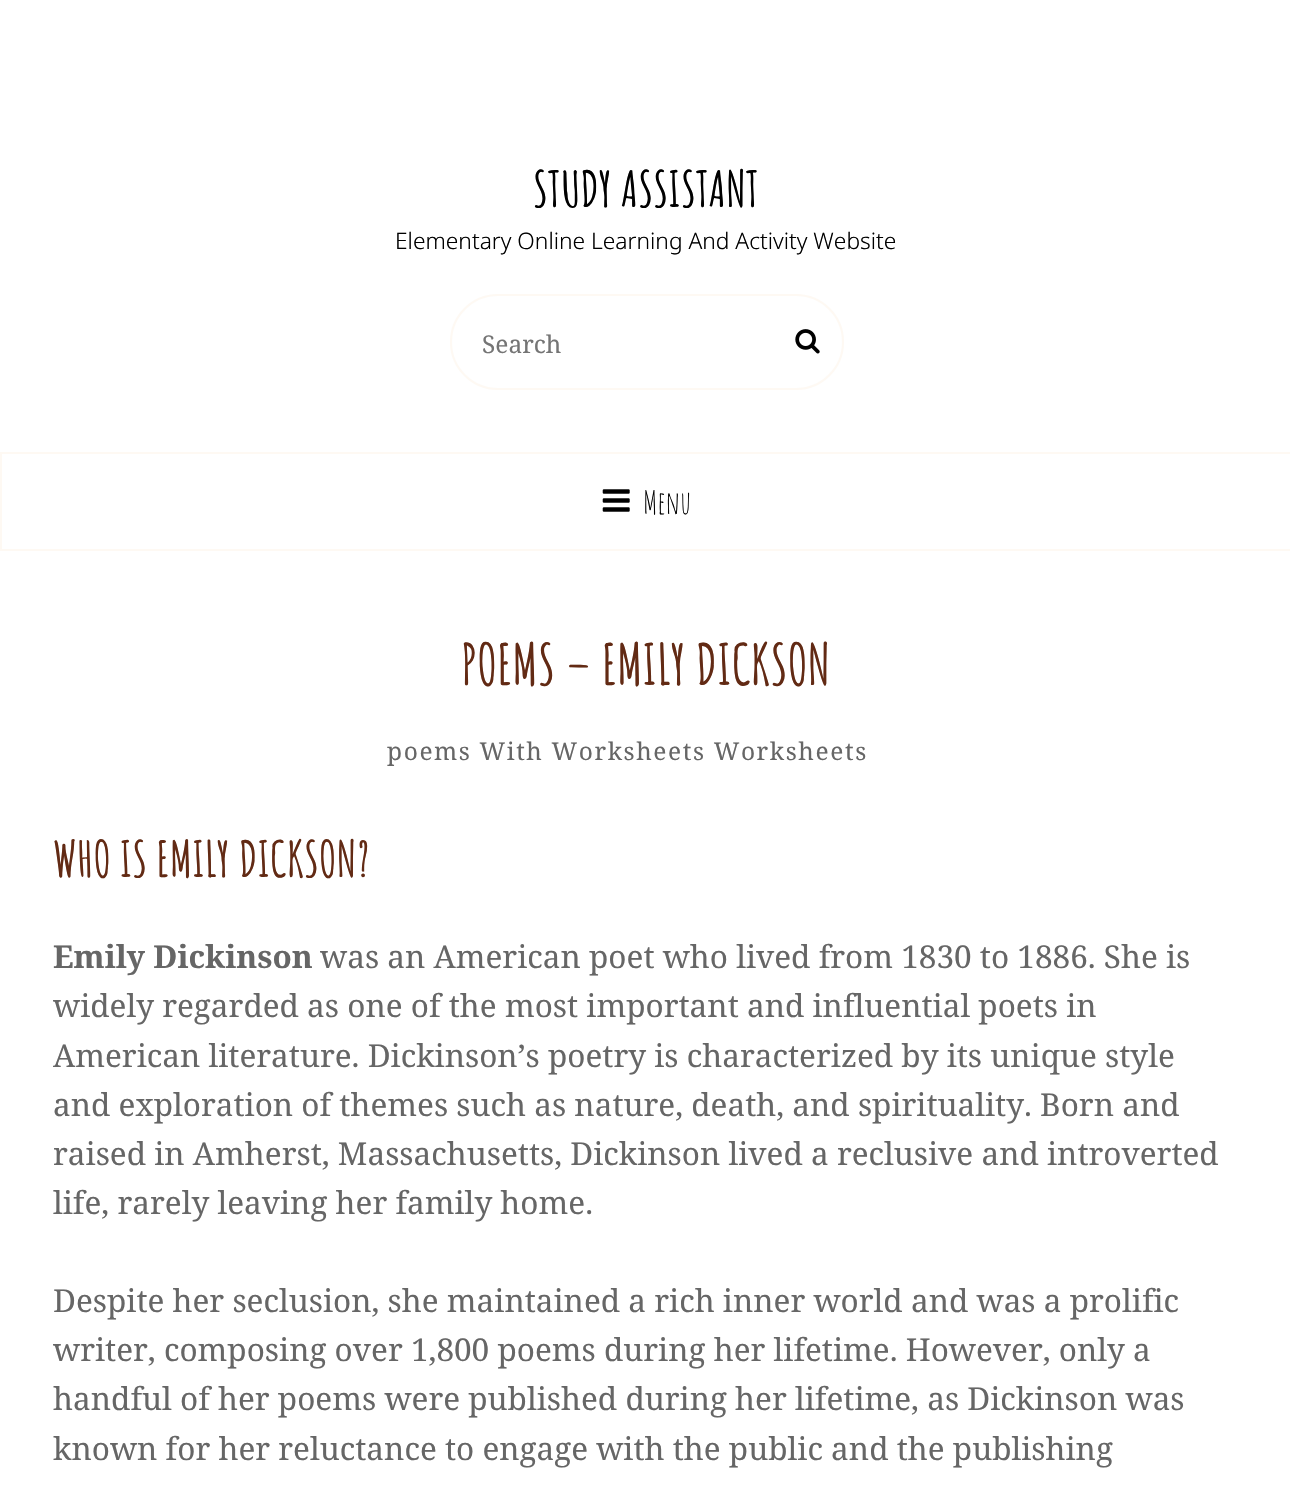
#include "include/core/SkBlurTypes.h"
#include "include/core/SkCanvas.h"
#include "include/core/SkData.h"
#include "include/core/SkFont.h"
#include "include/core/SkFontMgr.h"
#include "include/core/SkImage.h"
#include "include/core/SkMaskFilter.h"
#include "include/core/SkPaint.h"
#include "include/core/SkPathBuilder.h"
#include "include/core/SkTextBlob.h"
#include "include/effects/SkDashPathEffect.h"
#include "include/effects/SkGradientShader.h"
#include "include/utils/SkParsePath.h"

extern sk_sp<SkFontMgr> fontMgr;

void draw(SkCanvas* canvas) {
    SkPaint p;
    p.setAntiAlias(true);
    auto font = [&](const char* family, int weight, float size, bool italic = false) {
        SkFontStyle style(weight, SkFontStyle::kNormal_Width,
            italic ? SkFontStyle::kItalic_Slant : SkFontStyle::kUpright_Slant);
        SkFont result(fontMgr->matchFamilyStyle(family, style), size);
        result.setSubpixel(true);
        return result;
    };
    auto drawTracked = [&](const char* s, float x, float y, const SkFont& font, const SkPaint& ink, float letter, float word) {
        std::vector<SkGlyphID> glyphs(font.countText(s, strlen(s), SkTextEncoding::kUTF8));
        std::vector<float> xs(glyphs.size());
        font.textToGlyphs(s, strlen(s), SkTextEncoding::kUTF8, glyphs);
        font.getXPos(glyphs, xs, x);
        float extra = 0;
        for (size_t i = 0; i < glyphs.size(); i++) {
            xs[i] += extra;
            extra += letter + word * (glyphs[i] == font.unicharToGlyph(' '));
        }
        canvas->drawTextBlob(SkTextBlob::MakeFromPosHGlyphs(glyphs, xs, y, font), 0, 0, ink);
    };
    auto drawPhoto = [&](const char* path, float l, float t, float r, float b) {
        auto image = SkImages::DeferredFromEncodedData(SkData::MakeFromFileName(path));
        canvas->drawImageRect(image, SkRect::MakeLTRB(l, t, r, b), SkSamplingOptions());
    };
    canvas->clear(0xFFFFFFFF);
    auto font1 = font("Amatic SC", 700, 49);
    p.setColor(0xFF000000);
    canvas->drawString("STUDY ASSISTANT", 533, 207, font1, p);
    auto font2 = font("Noto Sans", 300, 22.75f);
    canvas->drawString("Elementary Online Learning And Activity Website", 395, 249, font2, p);
    p.setStyle(SkPaint::kStroke_Style);
    p.setStrokeWidth(2);
    p.setColor(0xFFFEF9F3);
    canvas->drawRoundRect(SkRect::MakeLTRB(451, 295, 843, 389), 47, 47, p);
    auto font3 = font("Noto Serif", 400, 24.5f);
    p.setStyle(SkPaint::kFill_Style);
    p.setColor(0xFF757575);
    canvas->drawString("Search", 482, 353, font3, p);
    drawPhoto("media/1.png", 795, 329, 820, 354);
    p.setStyle(SkPaint::kStroke_Style);
    p.setColor(0xFFFEF9F3);
    canvas->drawRect(SkRect::MakeLTRB(1, 453, 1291, 550), p);
    drawPhoto("media/2.png", 602, 489, 630, 512);
    auto font4 = font("Amatic SC", 400, 31.5f);
    p.setStyle(SkPaint::kFill_Style);
    p.setColor(0xFF000000);
    canvas->drawString("Menu", 643, 514, font4, p);
    auto font5 = font("Amatic SC", 700, 56);
    p.setColor(0xFF622A14);
    canvas->drawString("POEMS – EMILY DICKSON", 461, 685, font5, p);
    p.setColor(0xFF666666);
    drawTracked("poems With Worksheets Worksheets", 387, 760, font3, p, 1.6f, 0);
    p.setColor(0xFF622A14);
    canvas->drawString("WHO IS EMILY DICKSON?", 53, 877, font1, p);
    auto font6 = font("Noto Serif", 700, 31.5f);
    p.setColor(0xFF666666);
    canvas->drawString("Emily Dickinson", 53, 968, font6, p);
    auto font7 = font("Noto Serif", 400, 31.5f);
    {
        const struct { const char* s; float x, y; } items[] = {
            {"was an American poet who lived from 1830 to 1886. She is", 320, 968},
            {"widely regarded as one of the most important and influential poets in", 53, 1017},
            {"American literature. Dickinson’s poetry is characterized by its unique style", 53, 1067},
            {"and exploration of themes such as nature, death, and spirituality. Born and", 53, 1116},
            {"raised in Amherst, Massachusetts, Dickinson lived a reclusive and introverted", 53, 1165},
            {"life, rarely leaving her family home.", 53, 1214},
            {"Despite her seclusion, she maintained a rich inner world and was a prolific", 53, 1312},
            {"writer, composing over 1,800 poems during her lifetime. However, only a", 53, 1361},
            {"handful of her poems were published during her lifetime, as Dickinson was", 53, 1410},
            {"known for her reluctance to engage with the public and the publishing", 53, 1460},
        };
        for (auto [s, x, y] : items) {
            canvas->drawString(s, x, y, font7, p);
        }
    }
}
